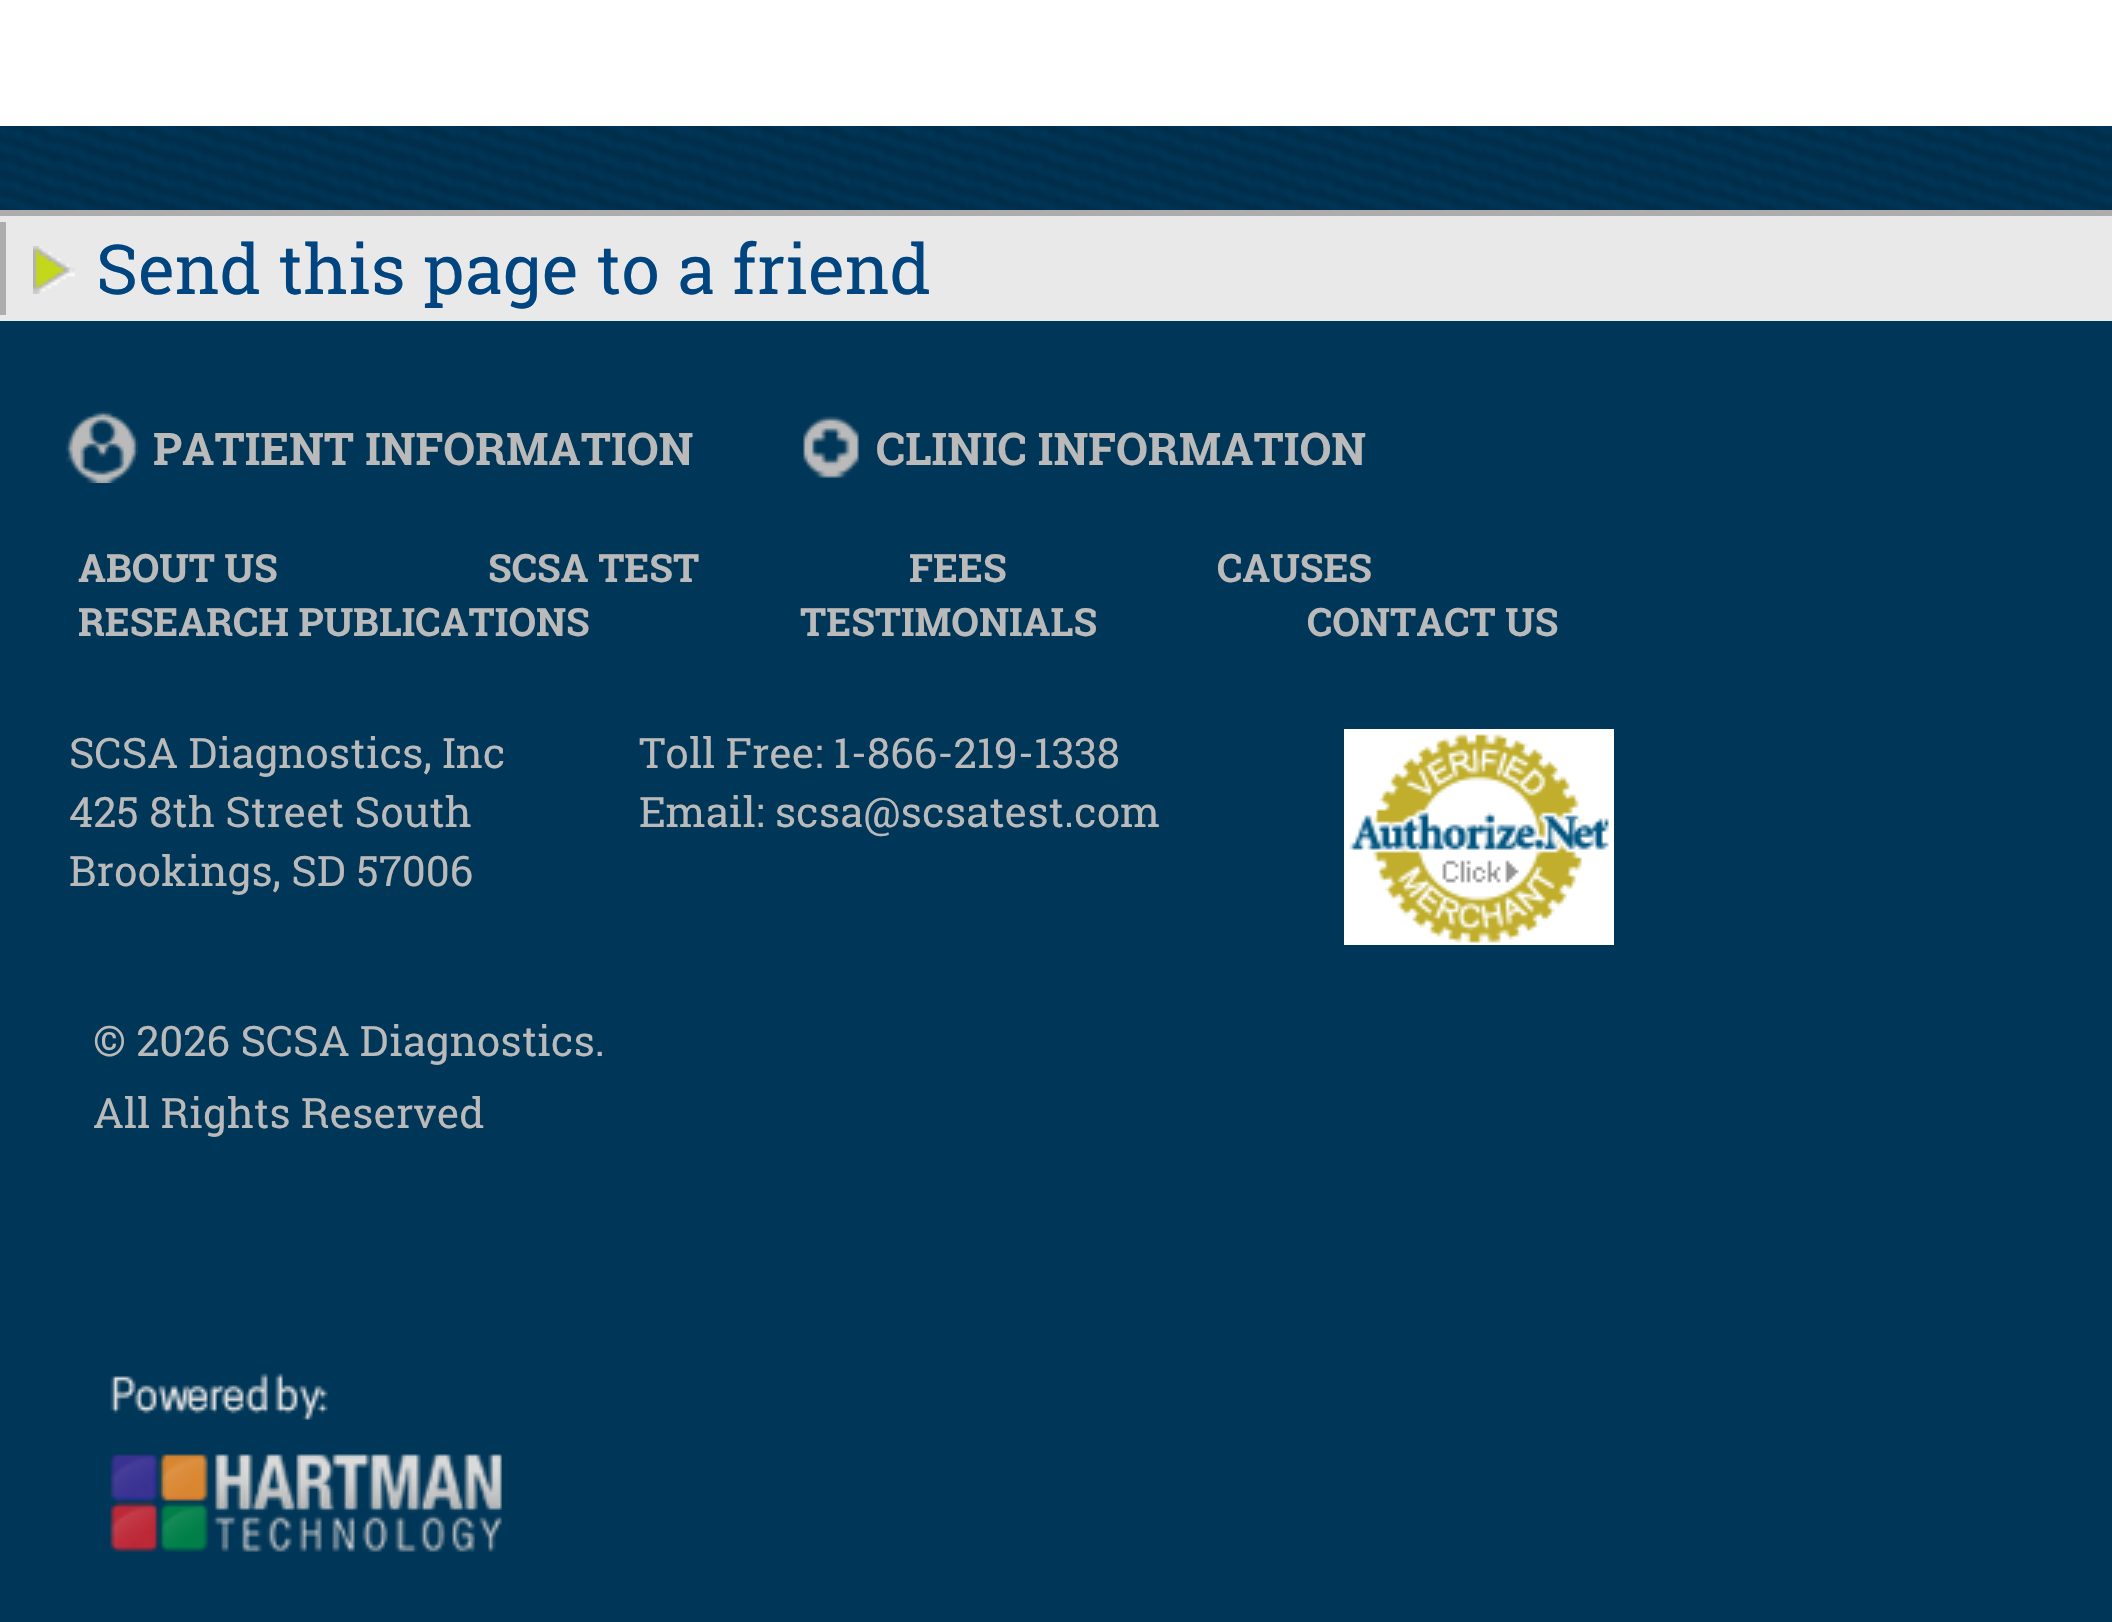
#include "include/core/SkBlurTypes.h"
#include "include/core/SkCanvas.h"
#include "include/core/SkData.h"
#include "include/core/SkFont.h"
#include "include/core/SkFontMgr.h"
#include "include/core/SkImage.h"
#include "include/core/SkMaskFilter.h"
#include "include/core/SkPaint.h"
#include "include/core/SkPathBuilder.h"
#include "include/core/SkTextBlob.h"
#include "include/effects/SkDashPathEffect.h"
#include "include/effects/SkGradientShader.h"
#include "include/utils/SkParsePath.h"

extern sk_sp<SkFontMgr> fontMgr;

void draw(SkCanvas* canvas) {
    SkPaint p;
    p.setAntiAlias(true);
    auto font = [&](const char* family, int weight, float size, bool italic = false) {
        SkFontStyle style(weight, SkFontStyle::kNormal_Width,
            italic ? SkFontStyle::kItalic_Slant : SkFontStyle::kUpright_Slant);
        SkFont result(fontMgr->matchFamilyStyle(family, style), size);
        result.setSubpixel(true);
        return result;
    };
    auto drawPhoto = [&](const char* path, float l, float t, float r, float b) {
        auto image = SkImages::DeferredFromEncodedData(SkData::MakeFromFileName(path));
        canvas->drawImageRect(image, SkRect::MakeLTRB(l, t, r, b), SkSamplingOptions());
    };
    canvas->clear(0xFF003658);
    drawPhoto("media/1.png", 0, 126, 2112, 210);
    {
        const struct { float l, t, r, b; SkColor color; } items[] = {
            {0, 0, 2112, 126, 0xFFFFFFFF},
            {0, 216, 2112, 321, 0xFFE9E9E9},
            {0, 210, 2112, 216, 0xFFADADAD},
            {0, 222, 6, 315, 0xFFADADAD},
        };
        for (auto [l, t, r, b, color] : items) {
            p.setColor(color);
            canvas->drawRect(SkRect::MakeLTRB(l, t, r, b), p);
        }
    }
    drawPhoto("media/2.png", 33, 246, 75, 294);
    auto font1 = font("Roboto Slab", 400, 69);
    p.setColor(0xFF004580);
    canvas->drawString("Send this page to a friend", 96, 294, font1, p);
    drawPhoto("media/3.png", 66, 411, 138, 483);
    auto font2 = font("Roboto Slab", 700, 45);
    p.setColor(0xFFBABABA);
    canvas->drawString("PATIENT INFORMATION", 153, 465, font2, p);
    drawPhoto("media/4.png", 803, 416, 859, 478);
    canvas->drawString("CLINIC INFORMATION", 876, 465, font2, p);
    auto font3 = font("Roboto Slab", 700, 39);
    {
        const struct { const char* s; float x, y; } items[] = {
            {"ABOUT US", 78, 582},
            {"SCSA TEST", 488, 582},
            {"FEES", 909, 582},
            {"CAUSES", 1217, 582},
            {"RESEARCH PUBLICATIONS", 78, 636},
            {"TESTIMONIALS", 800, 636},
            {"CONTACT US", 1307, 636},
        };
        for (auto [s, x, y] : items) {
            canvas->drawString(s, x, y, font3, p);
        }
    }
    auto font4 = font("Roboto Slab", 400, 42);
    {
        const struct { const char* s; float x, y; } items[] = {
            {"SCSA Diagnostics, Inc", 69, 768},
            {"425 8th Street South", 69, 827},
            {"Brookings, SD 57006", 69, 886},
            {"Toll Free: 1-866-219-1338", 639, 768},
            {"Email: scsa@scsatest.com", 639, 827},
        };
        for (auto [s, x, y] : items) {
            canvas->drawString(s, x, y, font4, p);
        }
    }
    p.setColor(0xFFFFFFFF);
    canvas->drawRect(SkRect::MakeLTRB(1344, 729, 1614, 945), p);
    drawPhoto("media/5.png", 1349, 734, 1609, 943);
    p.setColor(0xFFBABABA);
    canvas->drawString("© 2026 SCSA Diagnostics.", 93, 1056, font4, p);
    canvas->drawString("All Rights Reserved", 93, 1128, font4, p);
    drawPhoto("media/6.png", 110, 1373, 502, 1552);
}
